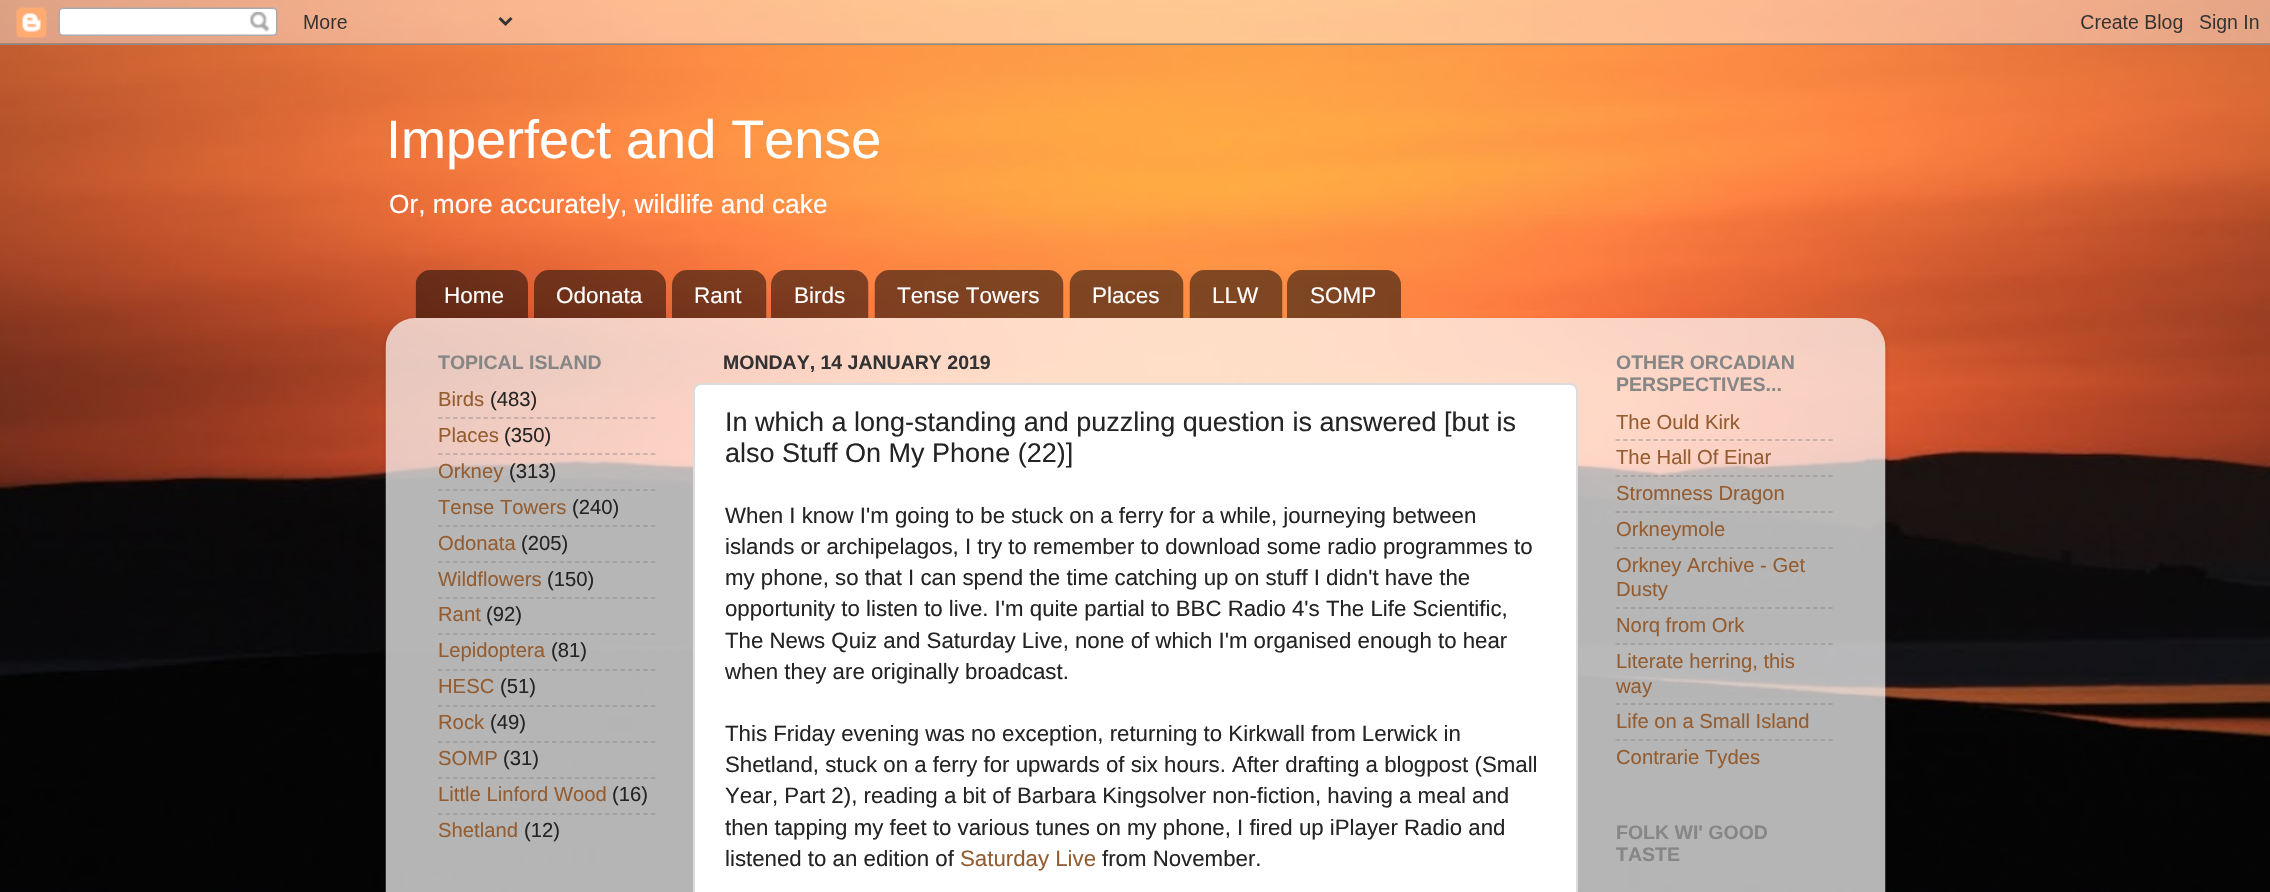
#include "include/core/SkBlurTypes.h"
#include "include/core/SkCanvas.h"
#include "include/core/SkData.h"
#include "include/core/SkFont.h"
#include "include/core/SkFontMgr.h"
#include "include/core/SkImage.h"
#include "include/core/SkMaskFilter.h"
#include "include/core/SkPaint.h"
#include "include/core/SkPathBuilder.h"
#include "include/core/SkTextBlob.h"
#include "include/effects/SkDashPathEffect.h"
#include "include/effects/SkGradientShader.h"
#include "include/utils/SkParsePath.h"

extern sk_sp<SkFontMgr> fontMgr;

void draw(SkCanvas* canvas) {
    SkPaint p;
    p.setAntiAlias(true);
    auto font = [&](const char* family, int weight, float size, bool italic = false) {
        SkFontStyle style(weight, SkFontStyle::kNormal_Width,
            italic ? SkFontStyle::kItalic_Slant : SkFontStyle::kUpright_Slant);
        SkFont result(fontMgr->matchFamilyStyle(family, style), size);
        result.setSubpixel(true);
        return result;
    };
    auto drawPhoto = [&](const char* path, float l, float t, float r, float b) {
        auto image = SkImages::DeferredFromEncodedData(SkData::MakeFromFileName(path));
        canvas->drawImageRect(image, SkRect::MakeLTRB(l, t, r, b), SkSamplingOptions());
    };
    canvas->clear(0xFFFFFFFF);
    drawPhoto("media/1.png", 0, 0, 2270, 892);
    drawPhoto("media/2.png", 0, 0, 2270, 45);
    auto font1 = font("Liberation Sans", 400, 54);
    p.setColor(0xFFFFFFFF);
    canvas->drawString("Imperfect and Tense", 386, 158, font1, p);
    auto font2 = font("Liberation Sans", 400, 26.3f);
    canvas->drawString("Or, more accurately, wildlife and cake", 389, 213, font2, p);
    drawPhoto("media/3.png", 415, 270, 528, 318);
    auto font3 = font("Liberation Sans", 400, 22.5f);
    canvas->drawString("Home", 444, 303, font3, p);
    drawPhoto("media/4.png", 534, 270, 666, 318);
    canvas->drawString("Odonata", 556, 303, font3, p);
    drawPhoto("media/5.png", 672, 270, 767, 318);
    canvas->drawString("Rant", 694, 303, font3, p);
    drawPhoto("media/6.png", 771, 270, 869, 318);
    canvas->drawString("Birds", 794, 303, font3, p);
    drawPhoto("media/7.png", 874, 270, 1064, 318);
    canvas->drawString("Tense Towers", 897, 303, font3, p);
    drawPhoto("media/8.png", 1069, 270, 1184, 318);
    canvas->drawString("Places", 1092, 303, font3, p);
    drawPhoto("media/9.png", 1189, 270, 1283, 318);
    canvas->drawString("LLW", 1212, 303, font3, p);
    drawPhoto("media/10.png", 1287, 270, 1401, 318);
    canvas->drawString("SOMP", 1310, 303, font3, p);
    canvas->save();
    canvas->clipPath(SkPathBuilder(SkPathFillType::kEvenOdd).moveTo(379, 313).lineTo(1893, 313).lineTo(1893, 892).lineTo(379, 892).close().moveTo(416, 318).lineTo(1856, 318).cubicTo(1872.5f, 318, 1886, 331.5f, 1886, 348).lineTo(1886, 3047).lineTo(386, 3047).lineTo(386, 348).cubicTo(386, 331.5f, 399.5f, 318, 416, 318).close().detach(), true);
    p.setColor(0x26000000);
    p.setMaskFilter(SkMaskFilter::MakeBlur(kNormal_SkBlurStyle, 2));
    canvas->drawRoundRect(SkRect::MakeLTRB(386, 320, 1886, 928), 30, 30, p);
    p.setMaskFilter(nullptr);
    canvas->restore();
    drawPhoto("media/11.png", 385, 318, 1886, 892);
    auto font4 = font("Liberation Sans", 700, 19.5f);
    p.setColor(0xFF868686);
    canvas->drawString("TOPICAL ISLAND", 438, 369, font4, p);
    auto font5 = font("Liberation Sans", 400, 20.25f);
    p.setColor(0xFF945D31);
    canvas->drawString("Birds", 438, 406, font5, p);
    p.setColor(0xFF242424);
    canvas->drawString("(483)", 490, 406, font5, p);
    p.setStyle(SkPaint::kStroke_Style);
    p.setStrokeWidth(1.5f);
    p.setColor(0x80808080);
    p.setPathEffect(SkDashPathEffect::Make({{4.5f, 3.1f}}, 0));
    canvas->drawPath(SkPathBuilder().moveTo(438, 418).lineTo(655.5f, 418).detach(), p);
    p.setPathEffect(nullptr);
    p.setStyle(SkPaint::kFill_Style);
    p.setColor(0xFF945D31);
    canvas->drawString("Places", 438, 442, font5, p);
    p.setColor(0xFF242424);
    canvas->drawString("(350)", 504, 442, font5, p);
    p.setStyle(SkPaint::kStroke_Style);
    p.setColor(0x80808080);
    p.setPathEffect(SkDashPathEffect::Make({{4.5f, 3.1f}}, 0));
    canvas->drawPath(SkPathBuilder().moveTo(438, 454).lineTo(655.5f, 454).detach(), p);
    p.setPathEffect(nullptr);
    p.setStyle(SkPaint::kFill_Style);
    p.setColor(0xFF945D31);
    canvas->drawString("Orkney", 438, 478, font5, p);
    p.setColor(0xFF242424);
    canvas->drawString("(313)", 509, 478, font5, p);
    p.setStyle(SkPaint::kStroke_Style);
    p.setColor(0xFF9B9B9B);
    p.setPathEffect(SkDashPathEffect::Make({{4.5f, 3.1f}}, 0));
    canvas->drawPath(SkPathBuilder().moveTo(438, 490).lineTo(655.5f, 490).detach(), p);
    p.setPathEffect(nullptr);
    p.setStyle(SkPaint::kFill_Style);
    p.setColor(0xFF945D31);
    canvas->drawString("Tense Towers", 438, 514, font5, p);
    p.setColor(0xFF242424);
    canvas->drawString("(240)", 572, 514, font5, p);
    p.setStyle(SkPaint::kStroke_Style);
    p.setColor(0xFF9B9B9B);
    p.setPathEffect(SkDashPathEffect::Make({{4.5f, 3.1f}}, 0));
    canvas->drawPath(SkPathBuilder().moveTo(438, 526).lineTo(655.5f, 526).detach(), p);
    p.setPathEffect(nullptr);
    p.setStyle(SkPaint::kFill_Style);
    p.setColor(0xFF945D31);
    canvas->drawString("Odonata", 438, 550, font5, p);
    p.setColor(0xFF242424);
    canvas->drawString("(205)", 521, 550, font5, p);
    p.setStyle(SkPaint::kStroke_Style);
    p.setColor(0xFF9B9B9B);
    p.setPathEffect(SkDashPathEffect::Make({{4.5f, 3.1f}}, 0));
    canvas->drawPath(SkPathBuilder().moveTo(438, 562).lineTo(655.5f, 562).detach(), p);
    p.setPathEffect(nullptr);
    p.setStyle(SkPaint::kFill_Style);
    p.setColor(0xFF945D31);
    canvas->drawString("Wildflowers", 438, 586, font5, p);
    p.setColor(0xFF242424);
    canvas->drawString("(150)", 547, 586, font5, p);
    p.setStyle(SkPaint::kStroke_Style);
    p.setColor(0xFF9B9B9B);
    p.setPathEffect(SkDashPathEffect::Make({{4.5f, 3.1f}}, 0));
    canvas->drawPath(SkPathBuilder().moveTo(438, 598).lineTo(655.5f, 598).detach(), p);
    p.setPathEffect(nullptr);
    p.setStyle(SkPaint::kFill_Style);
    p.setColor(0xFF945D31);
    canvas->drawString("Rant", 438, 621, font5, p);
    p.setColor(0xFF242424);
    canvas->drawString("(92)", 486, 621, font5, p);
    p.setStyle(SkPaint::kStroke_Style);
    p.setColor(0xFF9B9B9B);
    p.setPathEffect(SkDashPathEffect::Make({{4.5f, 3.1f}}, 0));
    canvas->drawPath(SkPathBuilder().moveTo(438, 634).lineTo(655.5f, 634).detach(), p);
    p.setPathEffect(nullptr);
    p.setStyle(SkPaint::kFill_Style);
    p.setColor(0xFF945D31);
    canvas->drawString("Lepidoptera", 438, 657, font5, p);
    p.setColor(0xFF242424);
    canvas->drawString("(81)", 551, 657, font5, p);
    p.setStyle(SkPaint::kStroke_Style);
    p.setColor(0xFF9A9A9A);
    p.setPathEffect(SkDashPathEffect::Make({{4.5f, 3.1f}}, 0));
    canvas->drawPath(SkPathBuilder().moveTo(438, 670).lineTo(655.5f, 670).detach(), p);
    p.setPathEffect(nullptr);
    p.setStyle(SkPaint::kFill_Style);
    p.setColor(0xFF945D31);
    canvas->drawString("HESC", 438, 693, font5, p);
    p.setColor(0xFF242424);
    canvas->drawString("(51)", 500, 693, font5, p);
    p.setStyle(SkPaint::kStroke_Style);
    p.setColor(0xFF9A9A9A);
    p.setPathEffect(SkDashPathEffect::Make({{4.5f, 3.1f}}, 0));
    canvas->drawPath(SkPathBuilder().moveTo(438, 706).lineTo(655.5f, 706).detach(), p);
    p.setPathEffect(nullptr);
    p.setStyle(SkPaint::kFill_Style);
    p.setColor(0xFF945D31);
    canvas->drawString("Rock", 438, 729, font5, p);
    p.setColor(0xFF242424);
    canvas->drawString("(49)", 490, 729, font5, p);
    p.setStyle(SkPaint::kStroke_Style);
    p.setColor(0xFF9A9A9A);
    p.setPathEffect(SkDashPathEffect::Make({{4.5f, 3.1f}}, 0));
    canvas->drawPath(SkPathBuilder().moveTo(438, 742).lineTo(655.5f, 742).detach(), p);
    p.setPathEffect(nullptr);
    p.setStyle(SkPaint::kFill_Style);
    p.setColor(0xFF945D31);
    canvas->drawString("SOMP", 438, 765, font5, p);
    p.setColor(0xFF242424);
    canvas->drawString("(31)", 503, 765, font5, p);
    p.setStyle(SkPaint::kStroke_Style);
    p.setColor(0xFF9A9A9A);
    p.setPathEffect(SkDashPathEffect::Make({{4.5f, 3.1f}}, 0));
    canvas->drawPath(SkPathBuilder().moveTo(438, 778).lineTo(655.5f, 778).detach(), p);
    p.setPathEffect(nullptr);
    p.setStyle(SkPaint::kFill_Style);
    p.setColor(0xFF945D31);
    canvas->drawString("Little Linford Wood", 438, 801, font5, p);
    p.setColor(0xFF242424);
    canvas->drawString("(16)", 612, 801, font5, p);
    p.setStyle(SkPaint::kStroke_Style);
    p.setColor(0xFF9A9A9A);
    p.setPathEffect(SkDashPathEffect::Make({{4.5f, 3.1f}}, 0));
    canvas->drawPath(SkPathBuilder().moveTo(438, 814).lineTo(655.5f, 814).detach(), p);
    p.setPathEffect(nullptr);
    p.setStyle(SkPaint::kFill_Style);
    p.setColor(0xFF945D31);
    canvas->drawString("Shetland", 438, 837, font5, p);
    p.setColor(0xFF242424);
    canvas->drawString("(12)", 524, 837, font5, p);
    p.setColor(0xFF333333);
    canvas->drawString("MONDAY, 14 JANUARY 2019", 723, 369, font4, p);
    p.setColor(0xFFFFFFFF);
    canvas->drawRoundRect(SkRect::MakeLTRB(694, 384, 1577, 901), 7, 7, p);
    p.setStyle(SkPaint::kStroke_Style);
    p.setStrokeWidth(2);
    p.setColor(0xFFDCDCDC);
    canvas->drawRoundRect(SkRect::MakeLTRB(694, 384, 1577, 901), 7, 7, p);
    auto font6 = font("Liberation Sans", 400, 27);
    p.setStyle(SkPaint::kFill_Style);
    p.setColor(0xFF242424);
    canvas->drawString("In which a long-standing and puzzling question is answered [but is", 725, 431, font6, p);
    canvas->drawString("also Stuff On My Phone (22)]", 725, 462, font6, p);
    auto font7 = font("Liberation Sans", 400, 22.25f);
    {
        const struct { const char* s; float x, y; } items[] = {
            {"When I know I'm going to be stuck on a ferry for a while, journeying between", 725, 523},
            {"islands or archipelagos, I try to remember to download some radio programmes to", 725, 554},
            {"my phone, so that I can spend the time catching up on stuff I didn't have the", 725, 585},
            {"opportunity to listen to live. I'm quite partial to BBC Radio 4's The Life Scientific,", 725, 616},
            {"The News Quiz and Saturday Live, none of which I'm organised enough to hear", 725, 648},
            {"when they are originally broadcast.", 725, 679},
            {"This Friday evening was no exception, returning to Kirkwall from Lerwick in", 725, 741},
            {"Shetland, stuck on a ferry for upwards of six hours. After drafting a blogpost (Small", 725, 772},
            {"Year, Part 2), reading a bit of Barbara Kingsolver non-fiction, having a meal and", 725, 803},
            {"then tapping my feet to various tunes on my phone, I fired up iPlayer Radio and", 725, 835},
            {"listened to an edition of", 725, 866},
        };
        for (auto [s, x, y] : items) {
            canvas->drawString(s, x, y, font7, p);
        }
    }
    p.setColor(0xFF945D31);
    canvas->drawString("Saturday Live", 960, 866, font7, p);
    p.setColor(0xFF242424);
    canvas->drawString("from November.", 1102, 866, font7, p);
    p.setColor(0xFF868686);
    canvas->drawString("OTHER ORCADIAN", 1616, 369, font4, p);
    canvas->drawString("PERSPECTIVES...", 1616, 391, font4, p);
    p.setColor(0xFF945D31);
    canvas->drawString("The Ould Kirk", 1616, 429, font5, p);
    p.setStyle(SkPaint::kStroke_Style);
    p.setStrokeWidth(1.5f);
    p.setColor(0x80808080);
    p.setPathEffect(SkDashPathEffect::Make({{4.5f, 3.1f}}, 0));
    canvas->drawPath(SkPathBuilder().moveTo(1615.5f, 440).lineTo(1833, 440).detach(), p);
    p.setPathEffect(nullptr);
    p.setStyle(SkPaint::kFill_Style);
    p.setColor(0xFF945D31);
    canvas->drawString("The Hall Of Einar", 1616, 464, font5, p);
    p.setStyle(SkPaint::kStroke_Style);
    p.setColor(0x80808080);
    p.setPathEffect(SkDashPathEffect::Make({{4.5f, 3.1f}}, 0));
    canvas->drawPath(SkPathBuilder().moveTo(1615.5f, 476).lineTo(1833, 476).detach(), p);
    p.setPathEffect(nullptr);
    p.setStyle(SkPaint::kFill_Style);
    p.setColor(0xFF945D31);
    canvas->drawString("Stromness Dragon", 1616, 500, font5, p);
    p.setStyle(SkPaint::kStroke_Style);
    p.setColor(0x80808080);
    p.setPathEffect(SkDashPathEffect::Make({{4.5f, 3.1f}}, 0));
    canvas->drawPath(SkPathBuilder().moveTo(1615.5f, 512).lineTo(1833, 512).detach(), p);
    p.setPathEffect(nullptr);
    p.setStyle(SkPaint::kFill_Style);
    p.setColor(0xFF945D31);
    canvas->drawString("Orkneymole", 1616, 536, font5, p);
    p.setStyle(SkPaint::kStroke_Style);
    p.setColor(0xFF9B9B9B);
    p.setPathEffect(SkDashPathEffect::Make({{4.5f, 3.1f}}, 0));
    canvas->drawPath(SkPathBuilder().moveTo(1615.5f, 548).lineTo(1833, 548).detach(), p);
    p.setPathEffect(nullptr);
    p.setStyle(SkPaint::kFill_Style);
    p.setColor(0xFF945D31);
    canvas->drawString("Orkney Archive - Get", 1616, 572, font5, p);
    canvas->drawString("Dusty", 1616, 596, font5, p);
    p.setStyle(SkPaint::kStroke_Style);
    p.setColor(0xFF9B9B9B);
    p.setPathEffect(SkDashPathEffect::Make({{4.5f, 3.1f}}, 0));
    canvas->drawPath(SkPathBuilder().moveTo(1615.5f, 608).lineTo(1833, 608).detach(), p);
    p.setPathEffect(nullptr);
    p.setStyle(SkPaint::kFill_Style);
    p.setColor(0xFF945D31);
    canvas->drawString("Norq from Ork", 1616, 632, font5, p);
    p.setStyle(SkPaint::kStroke_Style);
    p.setColor(0x80808080);
    p.setPathEffect(SkDashPathEffect::Make({{4.5f, 3.1f}}, 0));
    canvas->drawPath(SkPathBuilder().moveTo(1615.5f, 644).lineTo(1833, 644).detach(), p);
    p.setPathEffect(nullptr);
    p.setStyle(SkPaint::kFill_Style);
    p.setColor(0xFF945D31);
    canvas->drawString("Literate herring, this", 1616, 668, font5, p);
    canvas->drawString("way", 1616, 693, font5, p);
    p.setStyle(SkPaint::kStroke_Style);
    p.setColor(0xFF9A9A9A);
    p.setPathEffect(SkDashPathEffect::Make({{4.5f, 3.1f}}, 0));
    canvas->drawPath(SkPathBuilder().moveTo(1615.5f, 704).lineTo(1833, 704).detach(), p);
    p.setPathEffect(nullptr);
    p.setStyle(SkPaint::kFill_Style);
    p.setColor(0xFF945D31);
    canvas->drawString("Life on a Small Island", 1616, 728, font5, p);
    p.setStyle(SkPaint::kStroke_Style);
    p.setColor(0xFF9A9A9A);
    p.setPathEffect(SkDashPathEffect::Make({{4.5f, 3.1f}}, 0));
    canvas->drawPath(SkPathBuilder().moveTo(1615.5f, 740).lineTo(1833, 740).detach(), p);
    p.setPathEffect(nullptr);
    p.setStyle(SkPaint::kFill_Style);
    p.setColor(0xFF945D31);
    canvas->drawString("Contrarie Tydes", 1616, 764, font5, p);
    p.setColor(0xFF868686);
    canvas->drawString("FOLK WI' GOOD", 1616, 839, font4, p);
    canvas->drawString("TASTE", 1616, 861, font4, p);
}
